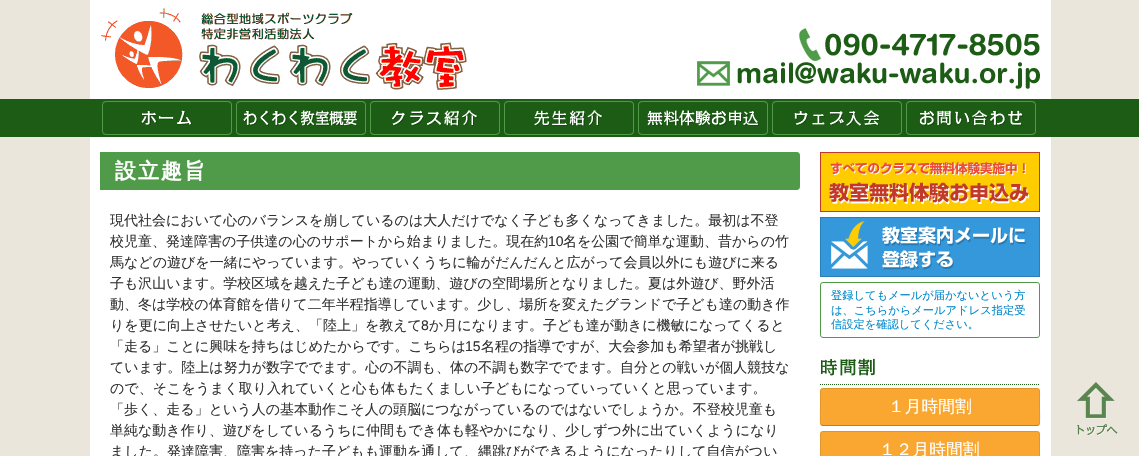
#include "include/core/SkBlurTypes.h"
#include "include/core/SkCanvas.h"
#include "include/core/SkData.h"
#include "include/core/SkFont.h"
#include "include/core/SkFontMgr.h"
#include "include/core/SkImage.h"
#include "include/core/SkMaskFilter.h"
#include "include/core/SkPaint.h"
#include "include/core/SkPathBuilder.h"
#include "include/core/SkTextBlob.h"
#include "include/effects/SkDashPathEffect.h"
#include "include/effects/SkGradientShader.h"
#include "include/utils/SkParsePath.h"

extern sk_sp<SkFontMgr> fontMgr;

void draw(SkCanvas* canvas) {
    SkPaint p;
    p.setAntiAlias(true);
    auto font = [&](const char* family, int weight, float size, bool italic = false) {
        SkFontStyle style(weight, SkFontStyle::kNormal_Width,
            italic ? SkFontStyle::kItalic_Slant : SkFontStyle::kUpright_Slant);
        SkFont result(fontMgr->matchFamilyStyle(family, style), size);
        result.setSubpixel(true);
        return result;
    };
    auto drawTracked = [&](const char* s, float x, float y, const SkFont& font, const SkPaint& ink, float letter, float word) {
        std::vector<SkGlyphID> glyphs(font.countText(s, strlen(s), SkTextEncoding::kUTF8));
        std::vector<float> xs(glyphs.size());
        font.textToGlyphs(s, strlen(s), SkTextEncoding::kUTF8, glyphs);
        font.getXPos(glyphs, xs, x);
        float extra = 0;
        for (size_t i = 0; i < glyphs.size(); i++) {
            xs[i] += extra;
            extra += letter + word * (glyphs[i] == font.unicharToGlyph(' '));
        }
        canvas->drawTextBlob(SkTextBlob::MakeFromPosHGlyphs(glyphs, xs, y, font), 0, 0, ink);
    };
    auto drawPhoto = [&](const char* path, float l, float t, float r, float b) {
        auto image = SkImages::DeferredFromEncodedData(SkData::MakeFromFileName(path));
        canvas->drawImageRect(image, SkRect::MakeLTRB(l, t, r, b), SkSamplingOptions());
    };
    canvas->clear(0xFFEAE6DC);
    p.setColor(0xFFFFFFFF);
    canvas->drawRect(SkRect::MakeLTRB(90, 0, 1051, 456), p);
    drawPhoto("media/1.png", 101, 8, 467, 90);
    drawPhoto("media/2.png", 799, 28, 1040, 61);
    drawPhoto("media/3.png", 697, 61, 1040, 89);
    p.setColor(0xFF1D5C15);
    canvas->drawRect(SkRect::MakeLTRB(0, 99, 1139, 137), p);
    drawPhoto("media/4.png", 102, 101, 232, 135);
    drawPhoto("media/5.png", 236, 101, 366, 135);
    drawPhoto("media/6.png", 370, 101, 500, 135);
    drawPhoto("media/7.png", 504, 101, 634, 135);
    drawPhoto("media/8.png", 638, 101, 768, 135);
    drawPhoto("media/9.png", 772, 101, 902, 135);
    drawPhoto("media/10.png", 906, 101, 1036, 135);
    p.setColor(0xFF509B49);
    canvas->drawPath(SkPathBuilder().moveTo(100, 152).lineTo(797, 152).cubicTo(798.5f, 152, 800, 153.5f, 800, 155).lineTo(800, 187).cubicTo(800, 188.5f, 798.5f, 190, 797, 190).lineTo(100, 190).close().detach(), p);
    auto font1 = font("WenQuanYi Zen Hei", 700, 21);
    p.setColor(0xFFFFFFFF);
    drawTracked("設立趣旨", 115, 178, font1, p, 2, 0);
    auto font2 = font("WenQuanYi Zen Hei", 500, 14);
    p.setColor(0xFF333333);
    canvas->drawString("現代社会において心のバランスを崩しているのは大人だけでなく子ども多くなってきました。最初は不登", 110, 225, font2, p);
    canvas->drawString("校児童、発達障害の子供達の心のサポートから始まりました。現在約", 110, 246, font2, p);
    auto font3 = font("Liberation Sans", 400, 14);
    canvas->drawString("10", 548, 246, font3, p);
    {
        const struct { const char* s; float x, y; } items[] = {
            {"名を公園で簡単な運動、昔からの竹", 563, 246},
            {"馬などの遊びを一緒にやっています。やっていくうちに輪がだんだんと広がって会員以外にも遊びに来る", 110, 267},
            {"子も沢山います。学校区域を越えた子ども達の運動、遊びの空間場所となりました。夏は外遊び、野外活", 110, 288},
            {"動、冬は学校の体育館を借りて二年半程指導しています。少し、場所を変えたグランドで子ども達の動き作", 110, 309},
            {"りを更に向上させたいと考え、「陸上」を教えて", 110, 330},
        };
        for (auto [s, x, y] : items) {
            canvas->drawString(s, x, y, font2, p);
        }
    }
    canvas->drawString("8", 421, 330, font3, p);
    canvas->drawString("か月になります。子ども達が動きに機敏になってくると", 429, 330, font2, p);
    canvas->drawString("「走る」ことに興味を持ちはじめたからです。こちらは", 110, 351, font2, p);
    canvas->drawString("15", 465, 351, font3, p);
    {
        const struct { const char* s; float x, y; } items[] = {
            {"名程の指導ですが、大会参加も希望者が挑戦し", 481, 351},
            {"ています。陸上は努力が数字ででます。心の不調も、体の不調も数字ででます。自分との戦いが個人競技な", 110, 372},
            {"ので、そこをうまく取り入れていくと心も体もたくましい子どもになっていっていくと思っています。", 110, 393},
            {"「歩く、走る」という人の基本動作こそ人の頭脳につながっているのではないでしょうか。不登校児童も", 110, 414},
            {"単純な動き作り、遊びをしているうちに仲間もでき体も軽やかになり、少しずつ外に出ていくようになり", 110, 435},
            {"ました。発達障害、障害を持った子どもも運動を通して、縄跳びができるようになったりして自信がつい", 110, 456},
        };
        for (auto [s, x, y] : items) {
            canvas->drawString(s, x, y, font2, p);
        }
    }
    drawPhoto("media/11.png", 820, 152, 1040, 212);
    drawPhoto("media/12.png", 820, 217, 1040, 277);
    p.setStyle(SkPaint::kStroke_Style);
    p.setStrokeWidth(1);
    p.setColor(0xFF509B49);
    canvas->drawRoundRect(SkRect::MakeLTRB(820.5f, 282.5f, 1039.5f, 337.5f), 2.5f, 2.5f, p);
    auto font4 = font("WenQuanYi Zen Hei", 500, 11.25f);
    p.setStyle(SkPaint::kFill_Style);
    p.setColor(0xFF0088CC);
    {
        const struct { const char* s; float x, y; } items[] = {
            {"登録してもメールが届かないという方", 831, 299},
            {"は、こちらからメールアドレス指定受", 831, 314},
            {"信設定を確認してください。", 831, 328},
        };
        for (auto [s, x, y] : items) {
            canvas->drawString(s, x, y, font4, p);
        }
    }
    drawPhoto("media/13.png", 820, 358, 1039, 385);
    p.setColor(0xFFFAA732);
    canvas->drawRoundRect(SkRect::MakeLTRB(820, 388, 1040, 426), 3, 3, p);
    p.setStyle(SkPaint::kStroke_Style);
    p.setColor(0x40000000);
    canvas->drawPath(SkPathBuilder().moveTo(1039, 425).lineTo(1037, 425.5f).lineTo(823, 425.5f).lineTo(821, 425).detach(), p);
    p.setColor(0x1A000000);
    canvas->drawPath(SkPathBuilder().moveTo(821, 425).cubicTo(819.5f, 423, 820.5f, 410, 820.5f, 407).lineTo(820.5f, 396.5f).cubicTo(820.5f, 394.5f, 819.5f, 388.5f, 823, 388.5f).lineTo(1037, 388.5f).cubicTo(1040.5f, 388.5f, 1039.5f, 394.5f, 1039.5f, 396.5f).lineTo(1039.5f, 407).cubicTo(1039.5f, 410, 1040.5f, 423, 1039, 425).detach(), p);
    auto font5 = font("WenQuanYi Zen Hei", 500, 16.75f);
    p.setStyle(SkPaint::kFill_Style);
    p.setColor(0xFFFFFFFF);
    canvas->drawString("１月時間割", 888, 412, font5, p);
    p.setColor(0xFFFAA732);
    canvas->drawRoundRect(SkRect::MakeLTRB(820, 431, 1040, 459), 3, 3, p);
    p.setStyle(SkPaint::kStroke_Style);
    p.setColor(0x1A000000);
    canvas->drawPath(SkPathBuilder().moveTo(821, 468).cubicTo(819.5f, 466, 820.5f, 453, 820.5f, 450).lineTo(820.5f, 439.5f).cubicTo(820.5f, 437.5f, 819.5f, 431.5f, 823, 431.5f).lineTo(1037, 431.5f).cubicTo(1040.5f, 431.5f, 1039.5f, 437.5f, 1039.5f, 439.5f).lineTo(1039.5f, 450).cubicTo(1039.5f, 453, 1040.5f, 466, 1039, 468).detach(), p);
    p.setStyle(SkPaint::kFill_Style);
    p.setColor(0xFFFFFFFF);
    canvas->drawString("１２月時間割", 879, 455, font5, p);
    drawPhoto("media/14.png", 1077, 382, 1118, 436);
}
